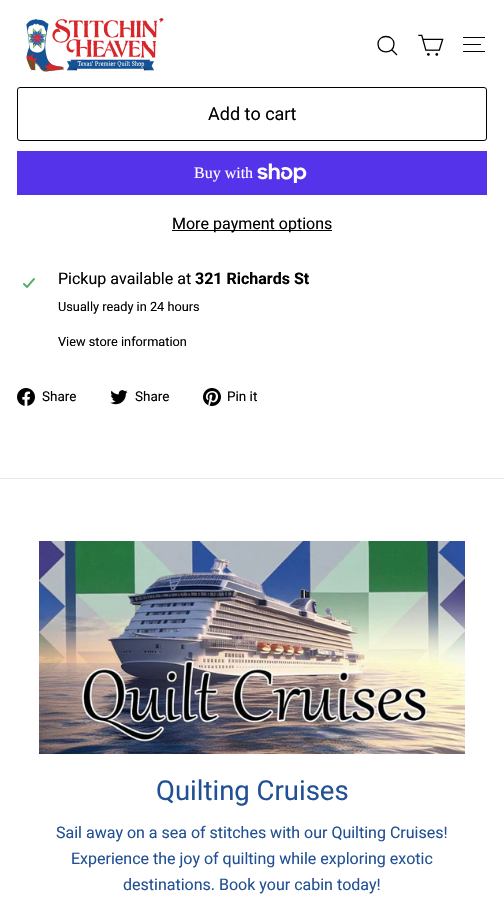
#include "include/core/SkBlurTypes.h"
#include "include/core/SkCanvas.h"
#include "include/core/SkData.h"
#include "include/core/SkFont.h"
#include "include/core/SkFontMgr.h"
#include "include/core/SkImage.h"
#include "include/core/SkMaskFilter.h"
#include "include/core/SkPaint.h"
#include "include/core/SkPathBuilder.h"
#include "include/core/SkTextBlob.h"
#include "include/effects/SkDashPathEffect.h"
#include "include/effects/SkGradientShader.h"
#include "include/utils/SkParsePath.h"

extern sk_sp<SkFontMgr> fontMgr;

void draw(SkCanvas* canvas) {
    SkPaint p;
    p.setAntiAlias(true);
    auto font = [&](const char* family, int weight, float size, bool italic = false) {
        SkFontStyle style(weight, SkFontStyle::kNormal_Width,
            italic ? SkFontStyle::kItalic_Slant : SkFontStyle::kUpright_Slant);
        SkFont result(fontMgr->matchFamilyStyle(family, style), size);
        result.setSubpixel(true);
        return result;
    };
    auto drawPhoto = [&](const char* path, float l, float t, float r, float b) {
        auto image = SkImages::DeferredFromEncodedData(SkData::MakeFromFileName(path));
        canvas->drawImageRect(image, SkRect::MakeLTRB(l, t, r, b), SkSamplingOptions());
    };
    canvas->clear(0xFFFFFFFF);
    drawPhoto("media/1.png", 26, 17, 164, 72);
    p.setStyle(SkPaint::kStroke_Style);
    p.setStrokeWidth(1.3f);
    p.setColor(0xFF000000);
    canvas->drawPath(SkPathBuilder().moveTo(394, 44).cubicTo(394, 54.5f, 378, 54.5f, 378, 44).cubicTo(378, 34, 394, 34, 394, 44).moveTo(397, 55).lineTo(391.5f, 49.5f).detach(), p);
    drawPhoto("media/2.png", 418, 34, 444, 56);
    p.setStyle(SkPaint::kFill_Style);
    {
        const struct { float l, t, r, b; SkColor color; } items[] = {
            {463, 37, 485, 38, 0xFF000000},
            {463, 44, 481, 45, 0xFF000000},
            {463, 51, 485, 52, 0xFF000000},
        };
        for (auto [l, t, r, b, color] : items) {
            p.setColor(color);
            canvas->drawRect(SkRect::MakeLTRB(l, t, r, b), p);
        }
    }
    p.setStyle(SkPaint::kStroke_Style);
    p.setStrokeWidth(1);
    canvas->drawRoundRect(SkRect::MakeLTRB(17.5f, 87.5f, 486.5f, 140.5f), 2.5f, 2.5f, p);
    auto font1 = font("Roboto", 400, 18);
    p.setStyle(SkPaint::kFill_Style);
    canvas->drawString("Add to cart", 208, 120, font1, p);
    p.setColor(0xFF5433EB);
    canvas->drawRect(SkRect::MakeLTRB(17, 151, 487, 195), p);
    auto font2 = font("Liberation Serif", 400, 16);
    p.setColor(0xFFFFFFFF);
    canvas->drawString("Buy with", 194, 178, font2, p);
    drawPhoto("media/3.png", 257, 163, 307, 183);
    p.setColor(0xFF000000);
    canvas->drawRect(SkRect::MakeLTRB(172, 230, 332, 231), p);
    auto font3 = font("Roboto", 400, 16);
    canvas->drawString("More payment options", 172, 229, font3, p);
    drawPhoto("media/4.png", 23, 278, 35, 288);
    canvas->drawString("Pickup available at", 58, 284, font3, p);
    auto font4 = font("Roboto", 700, 16);
    canvas->drawString("321 Richards St", 195, 284, font4, p);
    auto font5 = font("Roboto", 400, 12.75f);
    canvas->drawString("Usually ready in 24 hours", 58, 311, font5, p);
    canvas->drawString("View store information", 58, 346, font5, p);
    drawPhoto("media/5.png", 17, 388, 35, 406);
    auto font6 = font("Roboto", 400, 13.5f);
    canvas->drawString("Share", 42, 401, font6, p);
    drawPhoto("media/6.png", 110, 390, 128, 405);
    canvas->drawString("Share", 135, 401, font6, p);
    drawPhoto("media/7.png", 203, 388, 221, 406);
    canvas->drawString("Pin it", 227, 401, font6, p);
    p.setColor(0xFFE8E8E1);
    canvas->drawRect(SkRect::MakeLTRB(0, 478, 504, 479), p);
    drawPhoto("media/8.png", 39, 541, 465, 754);
    auto font7 = font("Roboto", 400, 27.5f);
    p.setColor(0xFF215094);
    canvas->drawString("Quilting Cruises", 156, 800, font7, p);
    {
        const struct { const char* s; float x, y; } items[] = {
            {"Sail away on a sea of stitches with our Quilting Cruises!", 56, 838},
            {"Experience the joy of quilting while exploring exotic", 71, 864},
            {"destinations. Book your cabin today!", 123, 890},
        };
        for (auto [s, x, y] : items) {
            canvas->drawString(s, x, y, font3, p);
        }
    }
}
